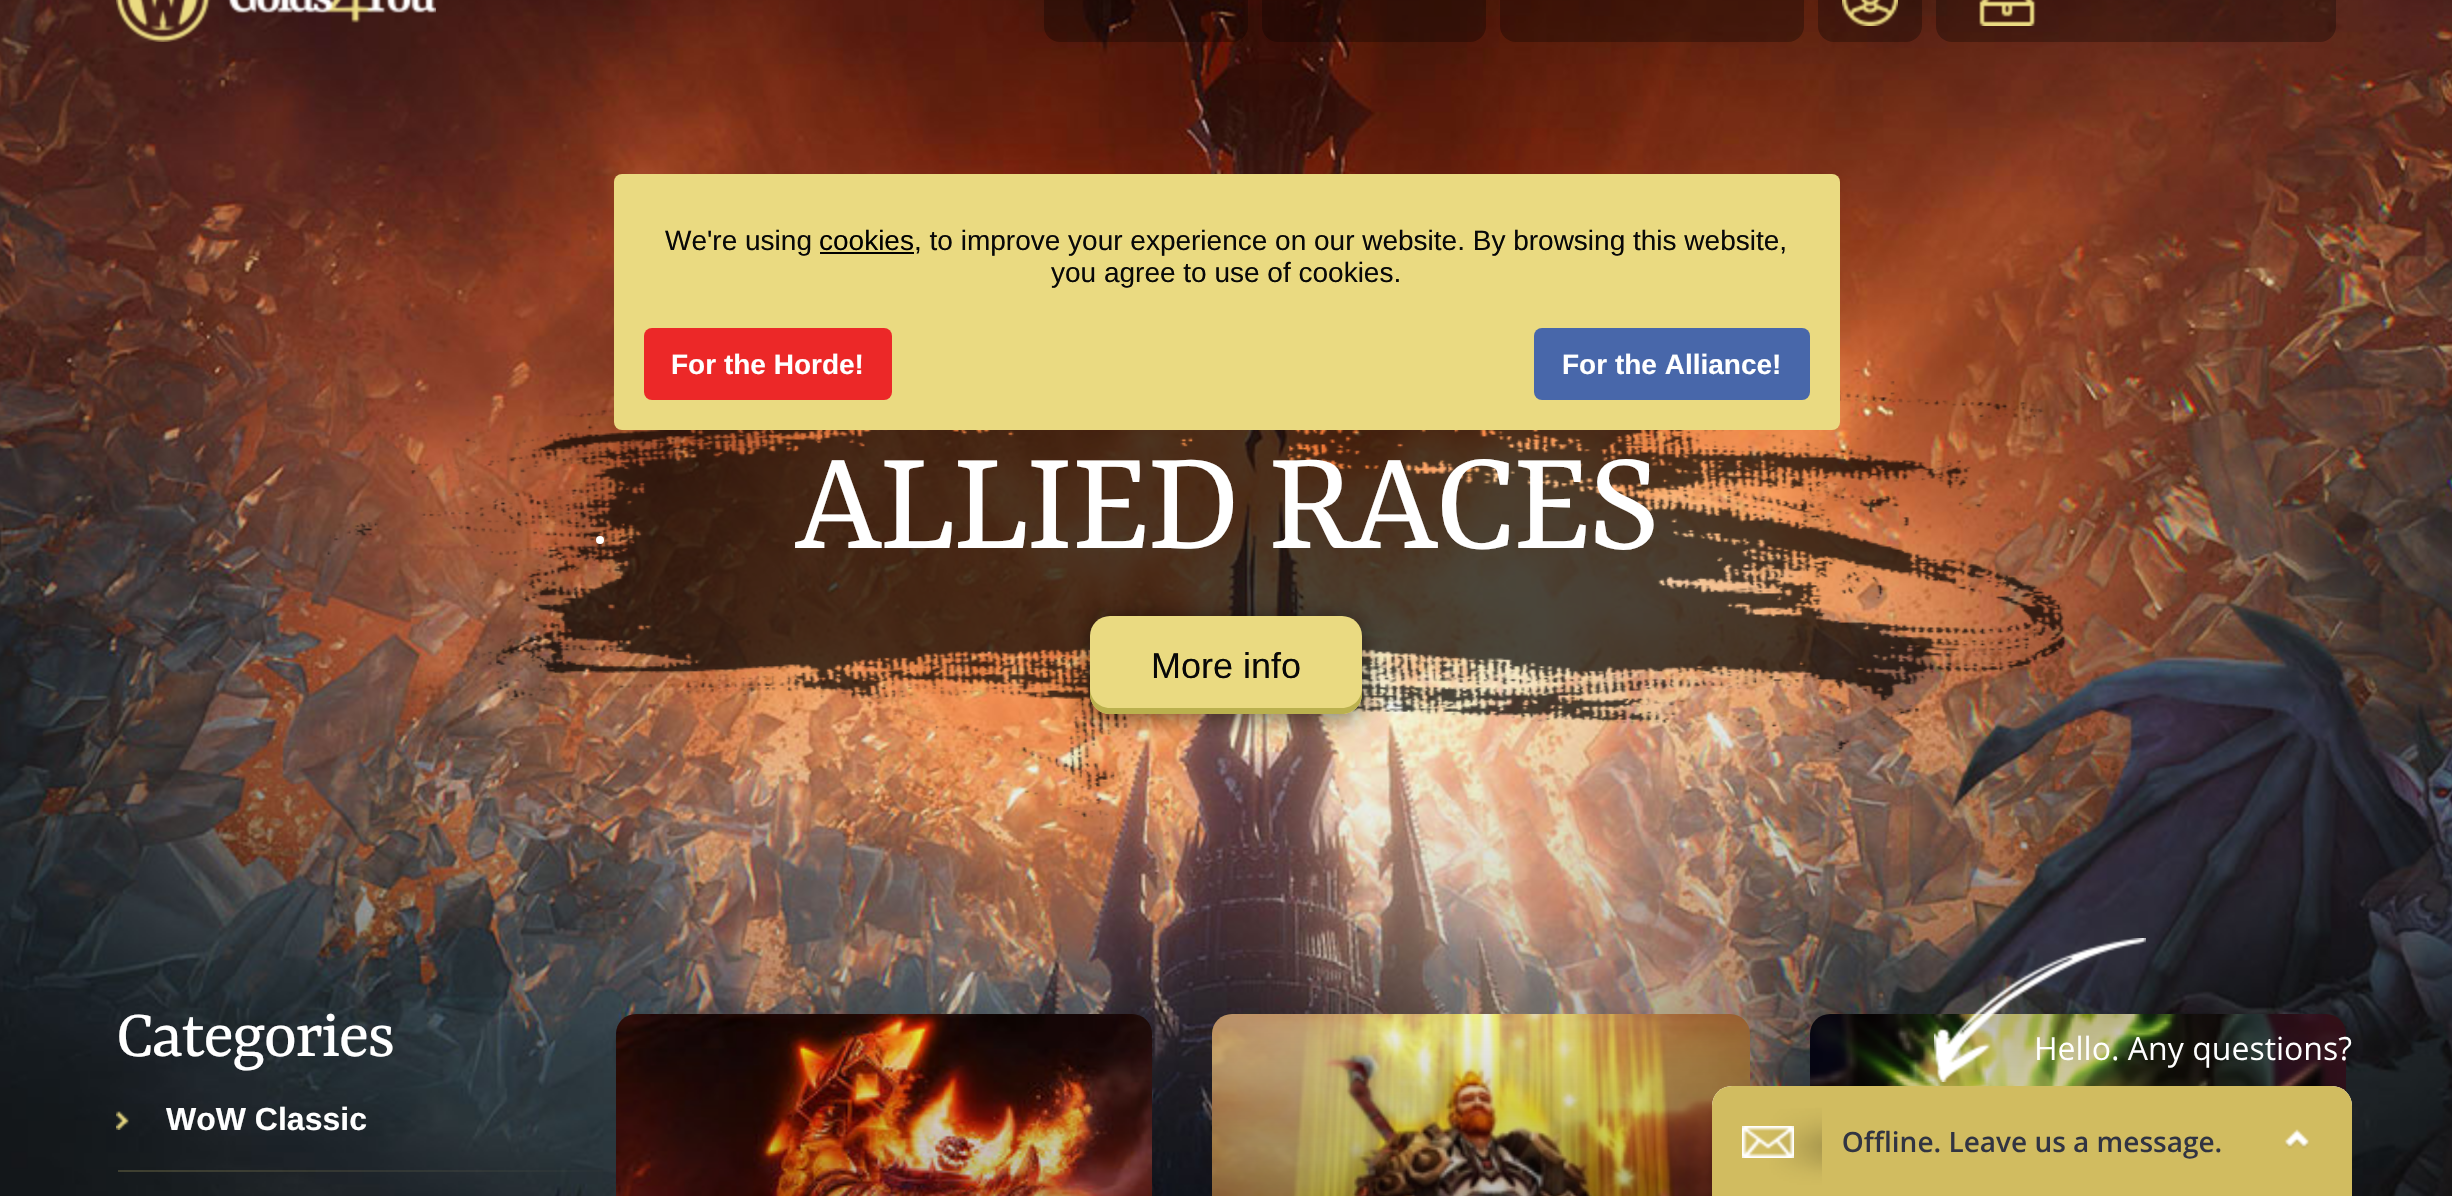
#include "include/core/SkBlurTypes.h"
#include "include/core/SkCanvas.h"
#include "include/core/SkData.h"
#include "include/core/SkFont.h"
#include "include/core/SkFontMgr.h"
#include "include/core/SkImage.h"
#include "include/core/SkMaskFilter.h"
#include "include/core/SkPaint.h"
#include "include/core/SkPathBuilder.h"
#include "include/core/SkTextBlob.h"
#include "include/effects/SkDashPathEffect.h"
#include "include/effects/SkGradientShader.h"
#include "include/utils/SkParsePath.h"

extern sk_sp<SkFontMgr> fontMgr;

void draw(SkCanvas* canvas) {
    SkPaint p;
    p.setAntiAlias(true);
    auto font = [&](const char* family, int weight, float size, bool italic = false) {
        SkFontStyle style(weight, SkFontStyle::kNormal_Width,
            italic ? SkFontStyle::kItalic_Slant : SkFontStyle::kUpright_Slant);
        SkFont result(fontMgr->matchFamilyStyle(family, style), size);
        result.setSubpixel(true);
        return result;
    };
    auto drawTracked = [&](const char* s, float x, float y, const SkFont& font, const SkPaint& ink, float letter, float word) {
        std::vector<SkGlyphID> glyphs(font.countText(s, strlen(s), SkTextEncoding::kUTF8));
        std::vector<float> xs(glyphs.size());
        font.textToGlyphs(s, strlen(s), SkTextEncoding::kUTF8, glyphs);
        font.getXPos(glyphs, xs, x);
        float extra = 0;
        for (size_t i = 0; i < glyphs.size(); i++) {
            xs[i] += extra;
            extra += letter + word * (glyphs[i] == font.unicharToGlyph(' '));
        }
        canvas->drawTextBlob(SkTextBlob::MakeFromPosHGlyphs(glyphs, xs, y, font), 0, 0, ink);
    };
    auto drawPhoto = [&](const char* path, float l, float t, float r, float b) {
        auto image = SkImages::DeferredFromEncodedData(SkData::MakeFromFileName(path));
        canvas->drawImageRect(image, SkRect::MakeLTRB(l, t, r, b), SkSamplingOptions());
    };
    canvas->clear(0xFFFFFFFF);
    drawPhoto("media/1.png", 0, 0, 2452, 1196);
    drawPhoto("media/5.png", 327, 369, 2125, 836);
    p.setColor(0xFFEADA81);
    canvas->drawRoundRect(SkRect::MakeLTRB(614, 174, 1840, 430), 8, 8, p);
    auto font1 = font("Liberation Sans", 400, 28);
    p.setColor(0xFF080808);
    canvas->drawString("We're using", 665, 250, font1, p);
    p.setColor(0xFF000000);
    canvas->drawString("cookies", 819, 250, font1, p);
    canvas->drawRect(SkRect::MakeLTRB(820, 252, 914, 254), p);
    p.setColor(0xFF080808);
    canvas->drawString(", to improve your experience on our website. By browsing this website,", 914, 250, font1, p);
    canvas->drawString("you agree to use of cookies.", 1051, 282, font1, p);
    p.setColor(0xFFEC2828);
    canvas->drawRoundRect(SkRect::MakeLTRB(644, 328, 892, 400), 8, 8, p);
    auto font2 = font("Liberation Sans", 700, 28);
    p.setColor(0xFFFFFFFF);
    canvas->drawString("For the Horde!", 671, 374, font2, p);
    p.setColor(0xFF4867AA);
    canvas->drawRoundRect(SkRect::MakeLTRB(1534, 328, 1810, 400), 8, 8, p);
    p.setColor(0xFFFFFFFF);
    canvas->drawString("For the Alliance!", 1562, 374, font2, p);
    drawPhoto("media/2.png", 116, 0, 436, 42);
    p.setColor(0x4D000000);
    canvas->drawRoundRect(SkRect::MakeLTRB(1044, -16, 1248, 42), 16, 16, p);
    canvas->drawRoundRect(SkRect::MakeLTRB(1262, -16, 1486, 42), 16, 16, p);
    canvas->drawRoundRect(SkRect::MakeLTRB(1500, -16, 1804, 42), 16, 16, p);
    canvas->drawRoundRect(SkRect::MakeLTRB(1818, -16, 1922, 42), 16, 16, p);
    drawPhoto("media/3.png", 1842, 0, 1898, 26);
    canvas->drawRoundRect(SkRect::MakeLTRB(1936, -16, 2336, 42), 16, 16, p);
    drawPhoto("media/4.png", 1979, 0, 2036, 26);
    p.setColor(0xFFFFFFFF);
    canvas->drawCircle(600, 540, 4, p);
    auto font3 = font("Yrsa", 400, 154);
    drawTracked("ALLIED RACES", 795, 548, font3, p, -3, 0);
    p.setColor(0x80000000);
    p.setMaskFilter(SkMaskFilter::MakeBlur(kNormal_SkBlurStyle, 12));
    canvas->drawRoundRect(SkRect::MakeLTRB(1090, 620, 1362, 718), 20, 20, p);
    p.setMaskFilter(nullptr);
    p.setColor(0xFFEADA81);
    canvas->drawRoundRect(SkRect::MakeLTRB(1090, 616, 1362, 714), 20, 20, p);
    p.setColor(0xFFBBB14E);
    canvas->drawPath(SkPathBuilder().moveTo(1090, 688).lineTo(1090, 694).cubicTo(1090, 705, 1099, 714, 1110, 714).lineTo(1342, 714).cubicTo(1353, 714, 1362, 705, 1362, 694).lineTo(1362, 688).cubicTo(1362, 699, 1353, 708, 1342, 708).lineTo(1110, 708).cubicTo(1099, 708, 1090, 699, 1090, 688).close().detach(), p);
    auto font4 = font("Liberation Sans", 400, 36);
    p.setColor(0xFF080808);
    canvas->drawString("More info", 1151, 678, font4, p);
    auto font5 = font("Yrsa", 400, 72);
    p.setColor(0xFFFFFFFF);
    drawTracked("Categories", 116, 1056, font5, p, -2, 0);
    drawPhoto("media/6.png", 116, 1111, 129, 1130);
    auto font6 = font("Liberation Sans", 700, 32);
    canvas->drawString("WoW Classic", 166, 1130, font6, p);
    drawPhoto("media/7.png", 616, 1014, 1152, 1196);
    {
        const SkColor colors[] = {0x0F000000, 0x8C000000};
        const float stops[] = {0, 1};
        const SkPoint ends[] = {{884, 1014}, {884, 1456}};
        p.setShader(SkGradientShader::MakeLinear(ends, colors, stops, 2, SkTileMode::kClamp));
        p.setAlpha(255);
    }
    canvas->drawRoundRect(SkRect::MakeLTRB(616, 1014, 1152, 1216), 20, 20, p);
    drawPhoto("media/8.png", 1212, 1014, 1750, 1196);
    {
        const SkColor colors[] = {0x0F000000, 0x8C000000};
        const float stops[] = {0, 1};
        const SkPoint ends[] = {{1481, 1014}, {1481, 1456}};
        p.setShader(SkGradientShader::MakeLinear(ends, colors, stops, 2, SkTileMode::kClamp));
        p.setAlpha(255);
    }
    canvas->drawRoundRect(SkRect::MakeLTRB(1212, 1014, 1750, 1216), 20, 20, p);
    drawPhoto("media/9.png", 1810, 1014, 2346, 1092);
    {
        const SkColor colors[] = {0x0F000000, 0x8C000000};
        const float stops[] = {0, 1};
        const SkPoint ends[] = {{2078, 1014}, {2078, 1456}};
        p.setShader(SkGradientShader::MakeLinear(ends, colors, stops, 2, SkTileMode::kClamp));
        p.setAlpha(255);
    }
    canvas->drawRoundRect(SkRect::MakeLTRB(1810, 1014, 2346, 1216), 20, 20, p);
    drawPhoto("media/10.png", 1934, 938, 2352, 1082);
    drawPhoto("media/11.png", 1712, 1086, 2352, 1196);
}
